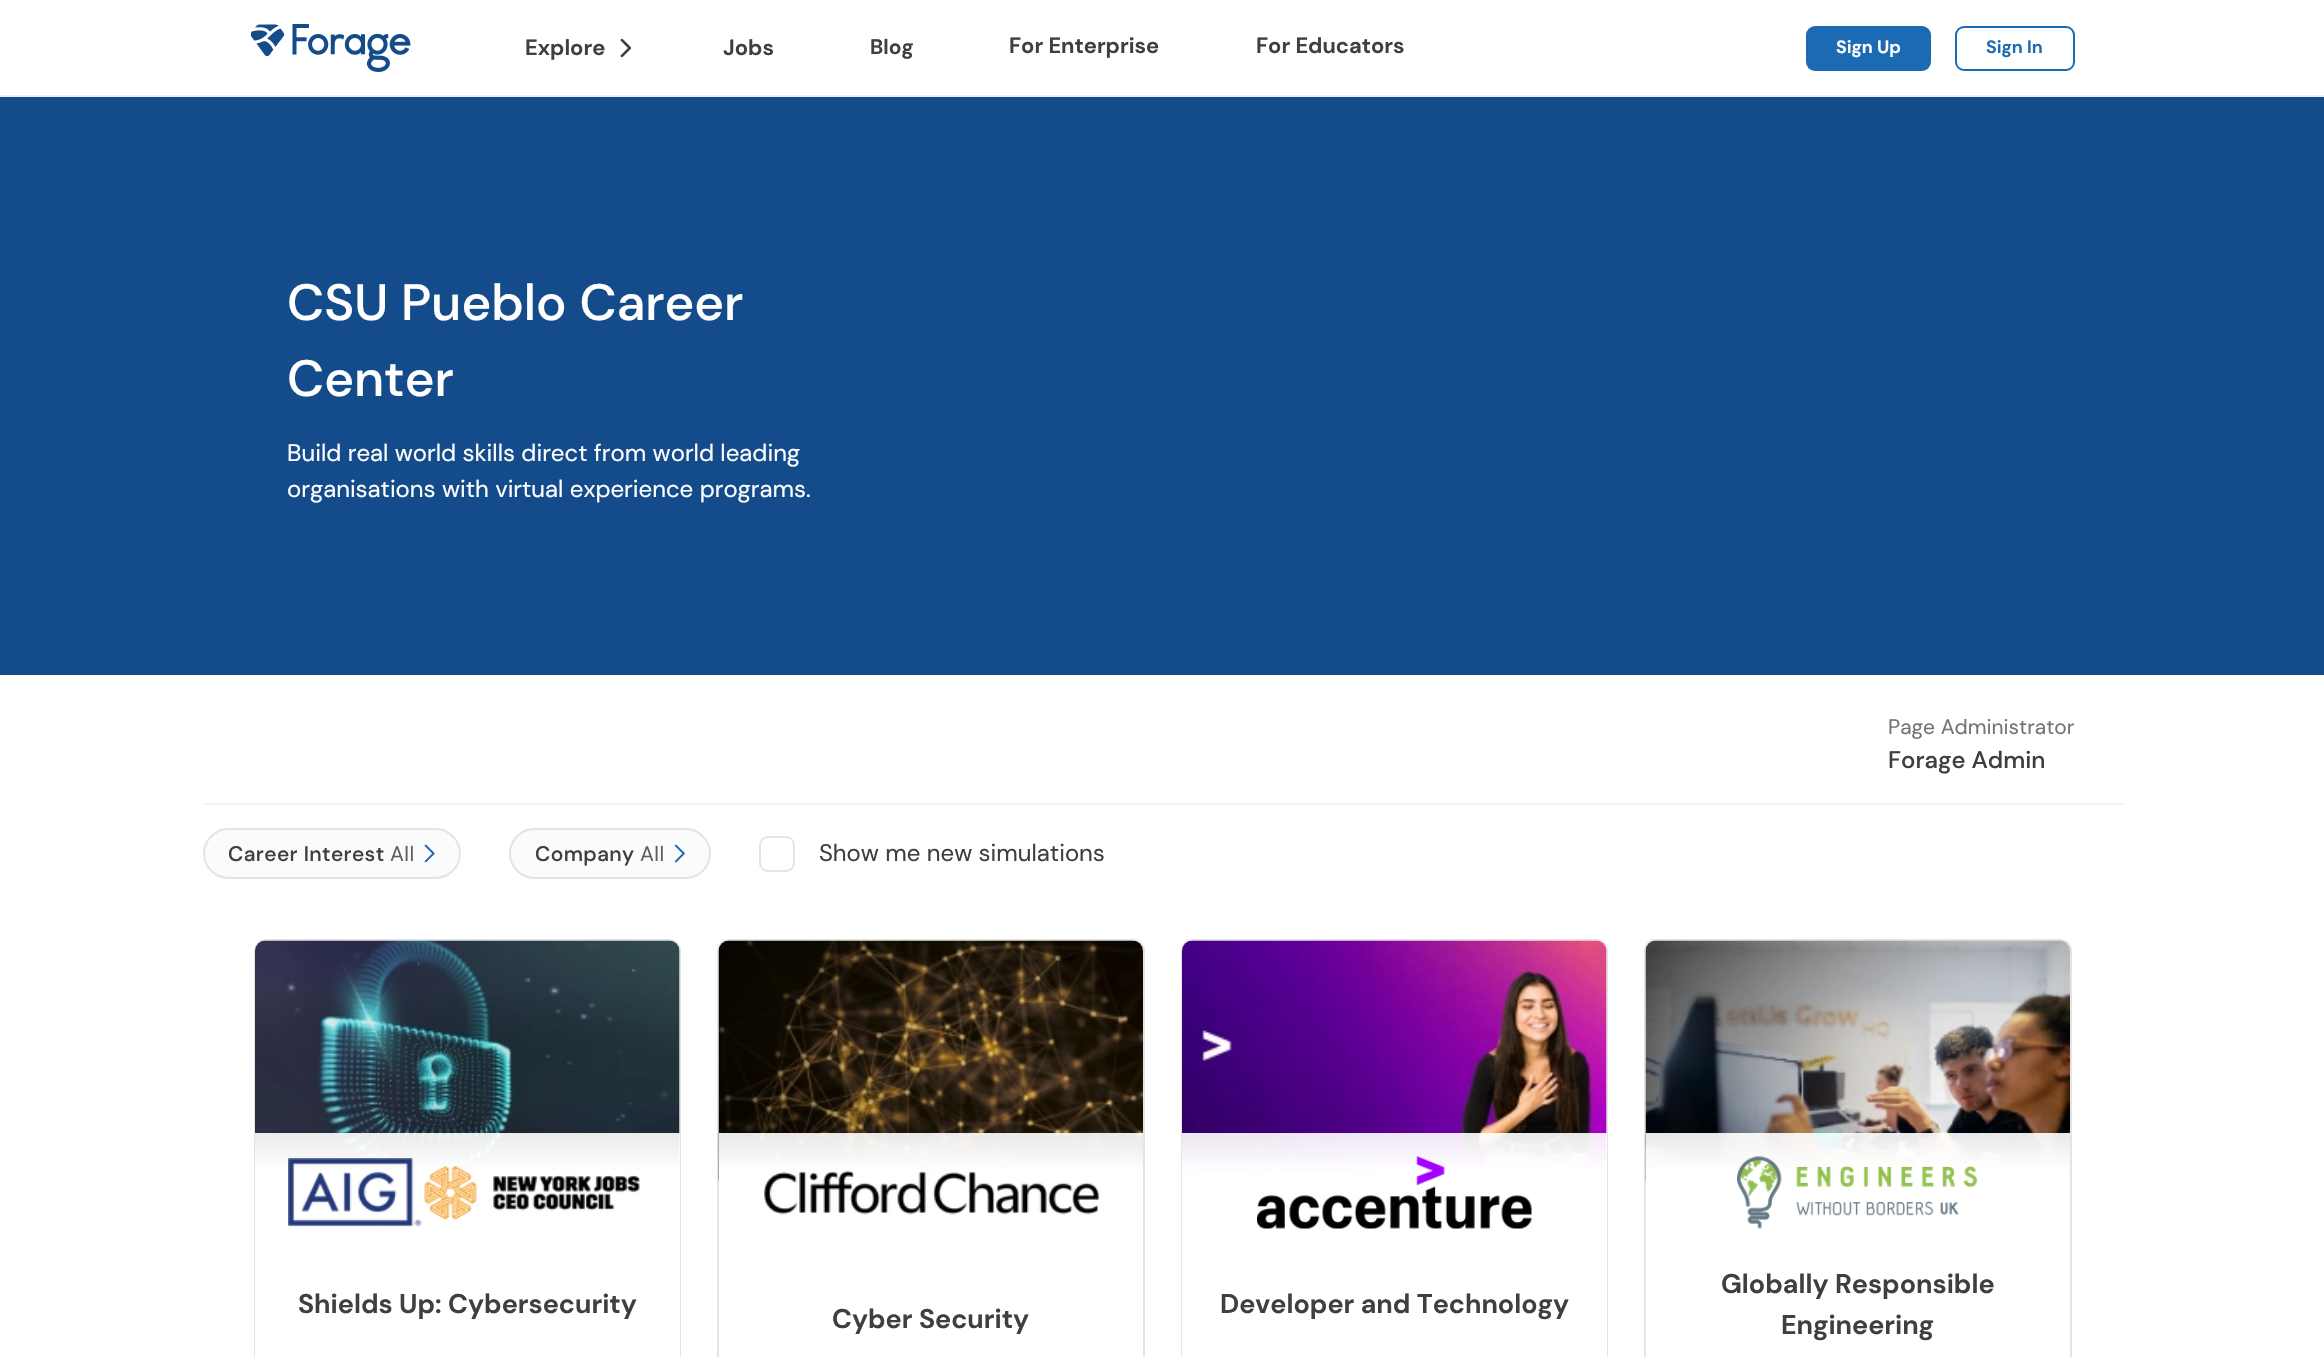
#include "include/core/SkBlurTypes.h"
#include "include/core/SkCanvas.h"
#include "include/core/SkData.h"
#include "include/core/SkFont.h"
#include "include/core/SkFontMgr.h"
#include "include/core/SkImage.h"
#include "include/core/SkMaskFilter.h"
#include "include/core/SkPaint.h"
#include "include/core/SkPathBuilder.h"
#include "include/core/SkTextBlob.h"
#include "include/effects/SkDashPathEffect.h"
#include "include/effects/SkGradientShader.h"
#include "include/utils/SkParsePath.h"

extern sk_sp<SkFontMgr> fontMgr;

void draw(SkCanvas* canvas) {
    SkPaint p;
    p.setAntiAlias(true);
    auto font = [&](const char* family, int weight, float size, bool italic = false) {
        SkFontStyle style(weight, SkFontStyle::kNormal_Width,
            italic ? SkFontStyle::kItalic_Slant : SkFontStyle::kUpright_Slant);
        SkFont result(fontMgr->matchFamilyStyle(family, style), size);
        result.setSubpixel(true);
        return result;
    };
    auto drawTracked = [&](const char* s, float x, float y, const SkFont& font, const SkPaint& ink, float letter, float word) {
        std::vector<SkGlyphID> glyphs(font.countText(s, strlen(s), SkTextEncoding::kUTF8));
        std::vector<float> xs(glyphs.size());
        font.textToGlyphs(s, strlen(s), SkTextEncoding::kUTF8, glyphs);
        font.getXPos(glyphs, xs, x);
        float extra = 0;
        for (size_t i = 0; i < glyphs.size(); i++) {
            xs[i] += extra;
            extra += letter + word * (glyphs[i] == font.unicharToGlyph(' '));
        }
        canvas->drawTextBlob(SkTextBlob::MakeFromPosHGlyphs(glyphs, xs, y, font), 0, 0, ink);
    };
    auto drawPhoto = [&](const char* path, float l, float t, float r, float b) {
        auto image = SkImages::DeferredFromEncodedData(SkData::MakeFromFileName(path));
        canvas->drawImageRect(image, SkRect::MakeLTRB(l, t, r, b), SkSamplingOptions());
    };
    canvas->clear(0xFFFFFFFF);
    p.setColor(0xFFEFEFEF);
    canvas->drawRect(SkRect::MakeLTRB(0, 95, 2324, 97), p);
    drawPhoto("media/1.png", 251, 24, 411, 72);
    auto font1 = font("DM Sans", 700, 22);
    p.setColor(0xFF3F3F3F);
    canvas->drawString("Explore", 525, 55, font1, p);
    drawPhoto("media/2.png", 620, 38, 632, 58);
    canvas->drawString("Jobs", 723, 55, font1, p);
    auto font2 = font("DM Sans", 700, 21);
    canvas->drawString("Blog", 870, 54, font2, p);
    canvas->drawString("For Enterprise", 1009, 53, font1, p);
    canvas->drawString("For Educators", 1256, 53, font1, p);
    p.setColor(0xFF1C6AB3);
    canvas->drawRoundRect(SkRect::MakeLTRB(1806, 26, 1931, 71), 9, 9, p);
    auto font3 = font("DM Sans", 700, 18);
    p.setColor(0xFFFFFFFF);
    canvas->drawString("Sign Up", 1836, 53, font3, p);
    p.setStyle(SkPaint::kStroke_Style);
    p.setStrokeWidth(2);
    p.setColor(0xFF1C6AB3);
    canvas->drawRoundRect(SkRect::MakeLTRB(1956, 27, 2074, 70), 8, 8, p);
    p.setStyle(SkPaint::kFill_Style);
    canvas->drawString("Sign In", 1986, 53, font3, p);
    p.setColor(0xFF144C8B);
    canvas->drawRect(SkRect::MakeLTRB(0, 97, 2324, 675), p);
    auto font4 = font("DM Sans", 500, 51);
    p.setColor(0xFFFFFFFF);
    canvas->drawString("CSU Pueblo Career", 287, 320, font4, p);
    canvas->drawString("Center", 287, 396, font4, p);
    auto font5 = font("DM Sans", 400, 24);
    canvas->drawString("Build real world skills direct from world leading", 287, 461, font5, p);
    canvas->drawString("organisations with virtual experience programs.", 287, 497, font5, p);
    auto font6 = font("DM Sans", 400, 21);
    p.setColor(0xFF737373);
    canvas->drawString("Page Administrator", 1888, 734, font6, p);
    auto font7 = font("DM Sans", 500, 24);
    p.setColor(0xFF3F3F3F);
    canvas->drawString("Forage Admin", 1888, 768, font7, p);
    p.setColor(0xFFF2F2F2);
    canvas->drawRect(SkRect::MakeLTRB(203, 803, 2123, 805), p);
    p.setColor(0xFFFBFBFB);
    canvas->drawRoundRect(SkRect::MakeLTRB(204, 829, 460, 878), 24.5f, 24.5f, p);
    p.setStyle(SkPaint::kStroke_Style);
    p.setColor(0xFFE4E4E4);
    canvas->drawRoundRect(SkRect::MakeLTRB(204, 829, 460, 878), 24.5f, 24.5f, p);
    auto font8 = font("DM Sans", 500, 21);
    p.setStyle(SkPaint::kFill_Style);
    p.setColor(0xFF3F3F3F);
    drawTracked("Career Interest", 228, 861, font8, p, 0.4f, 0);
    p.setColor(0xFF5F5F5F);
    drawTracked("All", 390, 861, font6, p, 0.4f, 0);
    drawPhoto("media/3.png", 424, 844, 435, 863);
    p.setColor(0xFFFBFBFB);
    canvas->drawRoundRect(SkRect::MakeLTRB(510, 829, 710, 878), 24.5f, 24.5f, p);
    p.setStyle(SkPaint::kStroke_Style);
    p.setColor(0xFFE4E4E4);
    canvas->drawRoundRect(SkRect::MakeLTRB(510, 829, 710, 878), 24.5f, 24.5f, p);
    p.setStyle(SkPaint::kFill_Style);
    p.setColor(0xFF3F3F3F);
    drawTracked("Company", 535, 861, font8, p, 0.4f, 0);
    p.setColor(0xFF5F5F5F);
    drawTracked("All", 640, 861, font6, p, 0.4f, 0);
    drawPhoto("media/4.png", 675, 844, 685, 863);
    p.setStyle(SkPaint::kStroke_Style);
    p.setColor(0xFFE4E4E4);
    canvas->drawRoundRect(SkRect::MakeLTRB(760, 837, 794, 871), 8, 8, p);
    p.setStyle(SkPaint::kFill_Style);
    p.setColor(0xFF3F3F3F);
    canvas->drawString("Show me new simulations", 819, 861, font5, p);
    p.setStyle(SkPaint::kStroke_Style);
    p.setColor(0xFFE4E4E4);
    canvas->drawRoundRect(SkRect::MakeLTRB(255, 940, 680, 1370), 11, 11, p);
    drawPhoto("media/5.png", 255, 940, 680, 1171);
    p.setStyle(SkPaint::kFill_Style);
    {
        const SkColor colors[] = {0xE6FFFFFF, 0xFFFFFFFF};
        const float stops[] = {0, 0.13f};
        const SkPoint ends[] = {{467, 1133}, {467, 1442}};
        p.setShader(SkGradientShader::MakeLinear(ends, colors, stops, 2, SkTileMode::kClamp));
        p.setAlpha(255);
    }
    canvas->drawRect(SkRect::MakeLTRB(255, 1133, 680, 1357), p);
    drawPhoto("media/6.png", 288, 1158, 640, 1227);
    auto font9 = font("DM Sans", 700, 27);
    p.setShader(nullptr);
    p.setColor(0xFF3F3F3F);
    canvas->drawString("Shields Up: Cybersecurity", 298, 1313, font9, p);
    p.setStyle(SkPaint::kStroke_Style);
    p.setColor(0xFFE4E4E4);
    canvas->drawRoundRect(SkRect::MakeLTRB(718, 940, 1144, 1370), 11, 11, p);
    drawPhoto("media/7.png", 718, 940, 1143, 1181);
    p.setStyle(SkPaint::kFill_Style);
    {
        const SkColor colors[] = {0xE6FFFFFF, 0xFFFFFFFF};
        const float stops[] = {0, 0.13f};
        const SkPoint ends[] = {{931, 1133}, {931, 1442}};
        p.setShader(SkGradientShader::MakeLinear(ends, colors, stops, 2, SkTileMode::kClamp));
        p.setAlpha(255);
    }
    canvas->drawRect(SkRect::MakeLTRB(719, 1133, 1143, 1181), p);
    drawPhoto("media/8.png", 764, 1170, 1100, 1215);
    p.setShader(nullptr);
    p.setColor(0xFF3F3F3F);
    canvas->drawString("Cyber Security", 832, 1328, font9, p);
    p.setStyle(SkPaint::kStroke_Style);
    p.setColor(0xFFE4E4E4);
    canvas->drawRoundRect(SkRect::MakeLTRB(1182, 940, 1607, 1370), 11, 11, p);
    drawPhoto("media/9.png", 1182, 940, 1607, 1171);
    p.setStyle(SkPaint::kFill_Style);
    {
        const SkColor colors[] = {0xE6FFFFFF, 0xFFFFFFFF};
        const float stops[] = {0, 0.13f};
        const SkPoint ends[] = {{1394, 1133}, {1394, 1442}};
        p.setShader(SkGradientShader::MakeLinear(ends, colors, stops, 2, SkTileMode::kClamp));
        p.setAlpha(255);
    }
    canvas->drawRect(SkRect::MakeLTRB(1182, 1133, 1607, 1357), p);
    drawPhoto("media/10.png", 1257, 1156, 1532, 1229);
    p.setShader(nullptr);
    p.setColor(0xFF3F3F3F);
    canvas->drawString("Developer and Technology", 1220, 1313, font9, p);
    p.setStyle(SkPaint::kStroke_Style);
    p.setColor(0xFFE4E4E4);
    canvas->drawRoundRect(SkRect::MakeLTRB(1645, 940, 2071, 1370), 11, 11, p);
    drawPhoto("media/11.png", 1645, 940, 2070, 1181);
    p.setStyle(SkPaint::kFill_Style);
    {
        const SkColor colors[] = {0xE6FFFFFF, 0xFFFFFFFF};
        const float stops[] = {0, 0.13f};
        const SkPoint ends[] = {{1858, 1133}, {1858, 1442}};
        p.setShader(SkGradientShader::MakeLinear(ends, colors, stops, 2, SkTileMode::kClamp));
        p.setAlpha(255);
    }
    canvas->drawRect(SkRect::MakeLTRB(1646, 1133, 2070, 1181), p);
    drawPhoto("media/12.png", 1737, 1156, 1978, 1229);
    p.setShader(nullptr);
    p.setColor(0xFF3F3F3F);
    canvas->drawString("Globally Responsible", 1721, 1293, font9, p);
    canvas->drawString("Engineering", 1781, 1334, font9, p);
}
